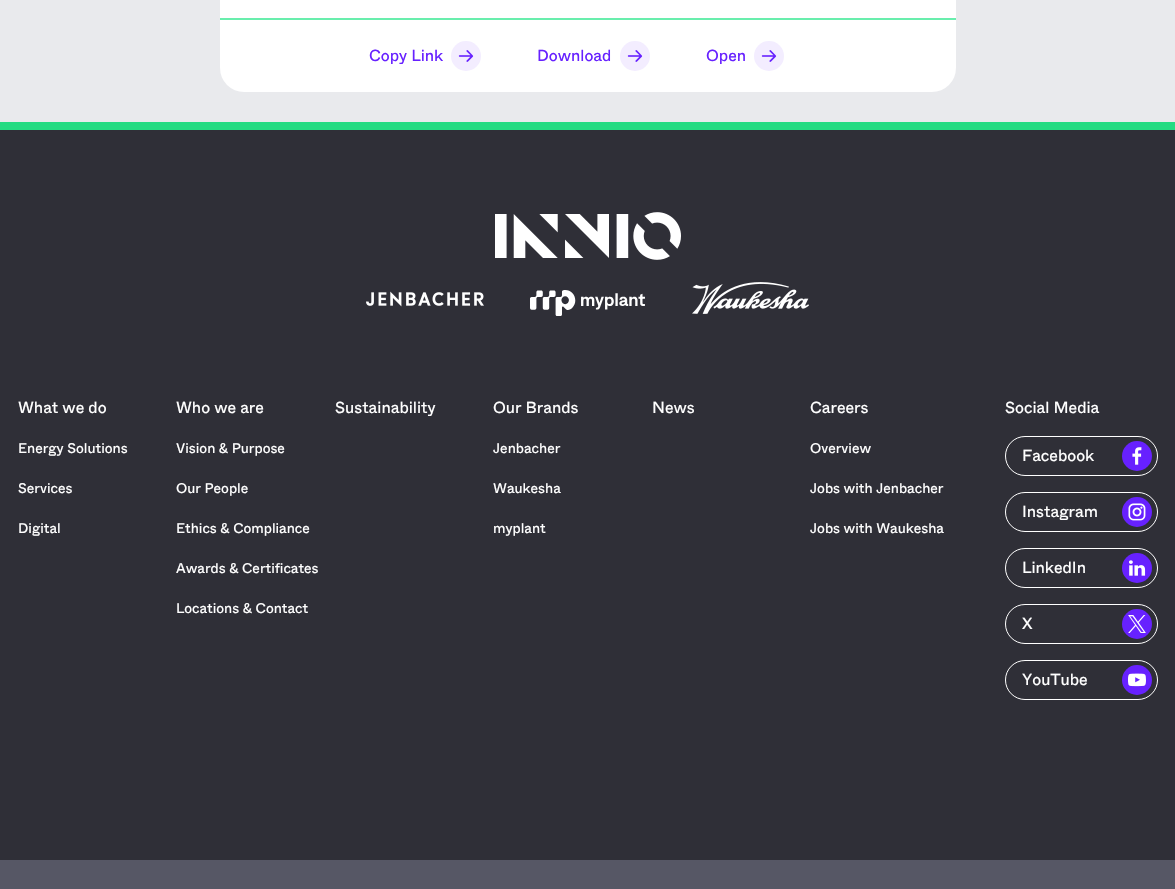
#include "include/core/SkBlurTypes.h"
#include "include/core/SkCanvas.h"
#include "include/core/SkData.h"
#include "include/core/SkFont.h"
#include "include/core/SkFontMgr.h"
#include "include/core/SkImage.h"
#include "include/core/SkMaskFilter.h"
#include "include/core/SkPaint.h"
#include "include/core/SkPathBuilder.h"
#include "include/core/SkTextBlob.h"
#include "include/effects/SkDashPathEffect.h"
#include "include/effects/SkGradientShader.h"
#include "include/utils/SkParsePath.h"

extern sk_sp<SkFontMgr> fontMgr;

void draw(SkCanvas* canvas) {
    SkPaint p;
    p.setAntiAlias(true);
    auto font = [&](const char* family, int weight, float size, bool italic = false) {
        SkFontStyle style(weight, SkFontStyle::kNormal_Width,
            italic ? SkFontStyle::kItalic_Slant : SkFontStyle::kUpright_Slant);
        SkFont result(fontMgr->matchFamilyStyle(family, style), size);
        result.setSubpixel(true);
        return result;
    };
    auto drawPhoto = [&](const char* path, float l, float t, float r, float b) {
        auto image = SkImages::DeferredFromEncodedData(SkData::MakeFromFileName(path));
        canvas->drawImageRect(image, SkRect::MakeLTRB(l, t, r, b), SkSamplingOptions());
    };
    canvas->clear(0xFFE9EAED);
    p.setColor(0xFFFFFFFF);
    canvas->drawRoundRect(SkRect::MakeLTRB(220, -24, 956, 92), 24, 24, p);
    p.setColor(0xFF69EEAD);
    canvas->drawRect(SkRect::MakeLTRB(220, 18, 956, 20), p);
    auto font1 = font("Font", 400, 16);
    p.setColor(0xFF6721FF);
    canvas->drawString("Copy Link", 369, 61, font1, p);
    p.setColor(0xFFF3EDFF);
    canvas->drawCircle(466, 56, 15, p);
    drawPhoto("media/1.png", 458, 50, 474, 62);
    p.setColor(0xFF6721FF);
    canvas->drawString("Download", 537, 61, font1, p);
    p.setColor(0xFFF3EDFF);
    canvas->drawCircle(635, 56, 15, p);
    drawPhoto("media/1.png", 627, 50, 643, 62);
    p.setColor(0xFF6721FF);
    canvas->drawString("Open", 706, 61, font1, p);
    p.setColor(0xFFF3EDFF);
    canvas->drawCircle(769, 56, 15, p);
    drawPhoto("media/1.png", 761, 50, 777, 62);
    p.setColor(0xFF2F2F37);
    canvas->drawRect(SkRect::MakeLTRB(0, 130, 1175, 860), p);
    p.setColor(0xFF24DB82);
    canvas->drawRect(SkRect::MakeLTRB(0, 122, 1175, 130), p);
    drawPhoto("media/2.png", 495, 212, 681, 260);
    drawPhoto("media/3.png", 366, 291, 484, 307);
    drawPhoto("media/4.png", 530, 290, 645, 316);
    drawPhoto("media/5.png", 692, 282, 809, 314);
    p.setColor(0xFFFFFFFF);
    canvas->drawString("What we do", 18, 413, font1, p);
    auto font2 = font("Font", 400, 14);
    {
        const struct { const char* s; float x, y; } items[] = {
            {"Energy Solutions", 18, 453},
            {"Services", 18, 493},
            {"Digital", 18, 533},
        };
        for (auto [s, x, y] : items) {
            canvas->drawString(s, x, y, font2, p);
        }
    }
    canvas->drawString("Who we are", 176, 413, font1, p);
    {
        const struct { const char* s; float x, y; } items[] = {
            {"Vision & Purpose", 176, 453},
            {"Our People", 176, 493},
            {"Ethics & Compliance", 176, 533},
            {"Awards & Certificates", 176, 573},
            {"Locations & Contact", 176, 613},
        };
        for (auto [s, x, y] : items) {
            canvas->drawString(s, x, y, font2, p);
        }
    }
    canvas->drawString("Sustainability", 335, 413, font1, p);
    canvas->drawString("Our Brands", 493, 413, font1, p);
    {
        const struct { const char* s; float x, y; } items[] = {
            {"Jenbacher", 493, 453},
            {"Waukesha", 493, 493},
            {"myplant", 493, 533},
        };
        for (auto [s, x, y] : items) {
            canvas->drawString(s, x, y, font2, p);
        }
    }
    canvas->drawString("News", 652, 413, font1, p);
    canvas->drawString("Careers", 810, 413, font1, p);
    {
        const struct { const char* s; float x, y; } items[] = {
            {"Overview", 810, 453},
            {"Jobs with Jenbacher", 810, 493},
            {"Jobs with Waukesha", 810, 533},
        };
        for (auto [s, x, y] : items) {
            canvas->drawString(s, x, y, font2, p);
        }
    }
    canvas->drawString("Social Media", 1005, 413, font1, p);
    p.setStyle(SkPaint::kStroke_Style);
    p.setStrokeWidth(1);
    canvas->drawRoundRect(SkRect::MakeLTRB(1005.5f, 436.5f, 1157.5f, 475.5f), 19.5f, 19.5f, p);
    p.setStyle(SkPaint::kFill_Style);
    canvas->drawString("Facebook", 1022, 461, font1, p);
    p.setColor(0xFF6721FF);
    canvas->drawCircle(1137, 456, 15, p);
    drawPhoto("media/6.png", 1132, 447, 1142, 465);
    p.setStyle(SkPaint::kStroke_Style);
    p.setColor(0xFFFFFFFF);
    canvas->drawRoundRect(SkRect::MakeLTRB(1005.5f, 492.5f, 1157.5f, 531.5f), 19.5f, 19.5f, p);
    p.setStyle(SkPaint::kFill_Style);
    canvas->drawString("Instagram", 1022, 517, font1, p);
    p.setColor(0xFF6721FF);
    canvas->drawCircle(1137, 512, 15, p);
    drawPhoto("media/7.png", 1128, 503, 1146, 521);
    p.setStyle(SkPaint::kStroke_Style);
    p.setColor(0xFFFFFFFF);
    canvas->drawRoundRect(SkRect::MakeLTRB(1005.5f, 548.5f, 1157.5f, 587.5f), 19.5f, 19.5f, p);
    p.setStyle(SkPaint::kFill_Style);
    canvas->drawString("LinkedIn", 1022, 573, font1, p);
    p.setColor(0xFF6721FF);
    canvas->drawCircle(1137, 568, 15, p);
    drawPhoto("media/8.png", 1129, 560, 1146, 576);
    p.setStyle(SkPaint::kStroke_Style);
    p.setColor(0xFFFFFFFF);
    canvas->drawRoundRect(SkRect::MakeLTRB(1005.5f, 604.5f, 1157.5f, 643.5f), 19.5f, 19.5f, p);
    p.setStyle(SkPaint::kFill_Style);
    canvas->drawString("X", 1022, 629, font1, p);
    p.setColor(0xFF6721FF);
    canvas->drawCircle(1137, 624, 15, p);
    drawPhoto("media/9.png", 1128, 615, 1146, 633);
    p.setStyle(SkPaint::kStroke_Style);
    p.setColor(0xFFFFFFFF);
    canvas->drawRoundRect(SkRect::MakeLTRB(1005.5f, 660.5f, 1157.5f, 699.5f), 19.5f, 19.5f, p);
    p.setStyle(SkPaint::kFill_Style);
    canvas->drawString("YouTube", 1022, 685, font1, p);
    p.setColor(0xFF6721FF);
    canvas->drawCircle(1137, 680, 15, p);
    drawPhoto("media/10.png", 1128, 673, 1146, 687);
    p.setColor(0xFF565765);
    canvas->drawRect(SkRect::MakeLTRB(0, 860, 1175, 889), p);
}
